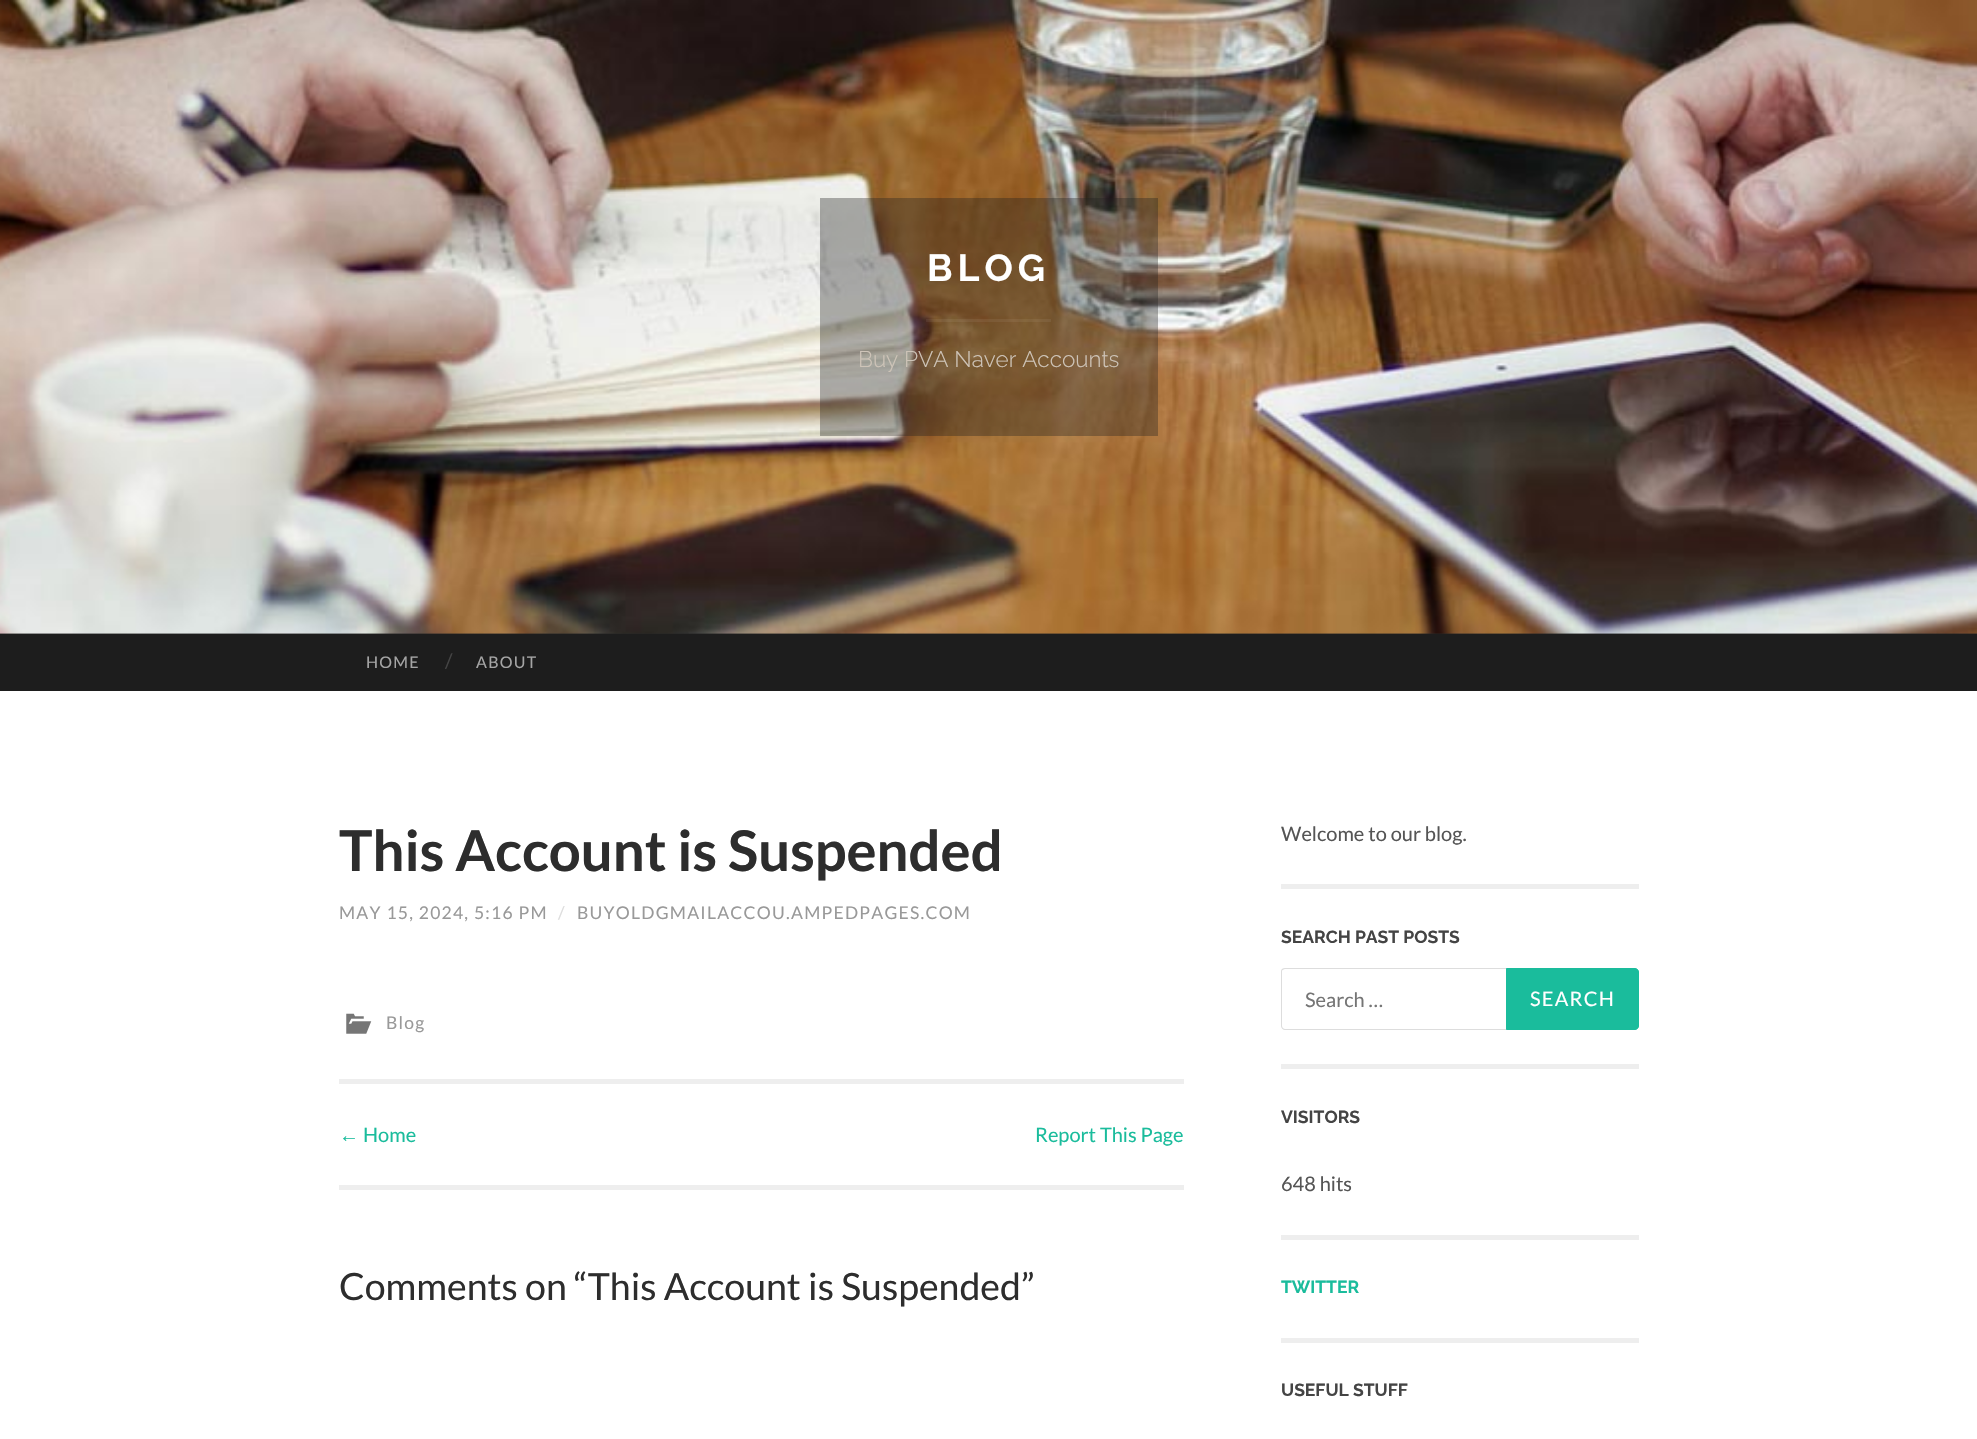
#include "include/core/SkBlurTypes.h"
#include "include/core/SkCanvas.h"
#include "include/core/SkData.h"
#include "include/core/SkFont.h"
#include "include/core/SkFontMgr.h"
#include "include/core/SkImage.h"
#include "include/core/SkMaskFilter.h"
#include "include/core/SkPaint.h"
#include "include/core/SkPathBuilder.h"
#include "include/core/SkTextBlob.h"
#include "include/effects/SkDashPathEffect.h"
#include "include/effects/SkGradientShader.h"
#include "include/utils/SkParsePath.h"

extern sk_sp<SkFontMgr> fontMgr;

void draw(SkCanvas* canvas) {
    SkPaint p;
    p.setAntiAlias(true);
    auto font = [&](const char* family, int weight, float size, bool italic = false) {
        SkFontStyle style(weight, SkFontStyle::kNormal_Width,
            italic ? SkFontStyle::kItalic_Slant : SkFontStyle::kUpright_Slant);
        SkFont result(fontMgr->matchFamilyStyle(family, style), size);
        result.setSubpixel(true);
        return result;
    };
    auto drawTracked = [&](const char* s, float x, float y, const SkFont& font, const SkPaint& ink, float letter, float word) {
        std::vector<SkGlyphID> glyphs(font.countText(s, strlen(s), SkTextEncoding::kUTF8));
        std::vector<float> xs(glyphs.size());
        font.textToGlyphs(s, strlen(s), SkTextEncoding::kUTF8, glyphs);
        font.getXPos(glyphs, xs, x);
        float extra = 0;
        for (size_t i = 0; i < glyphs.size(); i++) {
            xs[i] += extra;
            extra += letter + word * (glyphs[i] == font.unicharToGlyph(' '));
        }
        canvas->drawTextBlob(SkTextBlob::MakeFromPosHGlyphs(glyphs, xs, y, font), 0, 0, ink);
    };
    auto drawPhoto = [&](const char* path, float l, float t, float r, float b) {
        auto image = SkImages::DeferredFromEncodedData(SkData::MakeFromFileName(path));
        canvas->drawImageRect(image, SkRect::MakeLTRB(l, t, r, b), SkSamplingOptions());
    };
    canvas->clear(0xFFFFFFFF);
    p.setColor(0xFF262626);
    canvas->drawRect(SkRect::MakeLTRB(0, 633, 1977, 634), p);
    drawPhoto("media/1.png", 0, 0, 1977, 634);
    p.setColor(0x571D1D1D);
    canvas->drawRect(SkRect::MakeLTRB(820, 198, 1158, 436), p);
    auto font1 = font("Raleway", 700, 37.5f);
    p.setColor(0xFFFFFFFF);
    drawTracked("BLOG", 927, 281, font1, p, 5, 0);
    p.setColor(0x0FFFFFFF);
    canvas->drawRect(SkRect::MakeLTRB(926, 319, 1051, 322), p);
    auto font2 = font("Raleway", 300, 22.5f);
    p.setColor(0xFFCEC4B8);
    canvas->drawString("Buy PVA Naver Accounts", 858, 367, font2, p);
    p.setColor(0xFF1D1D1D);
    canvas->drawRect(SkRect::MakeLTRB(0, 634, 1977, 691), p);
    auto font3 = font("Lato", 400, 16);
    p.setColor(0xFFA5A5A5);
    drawTracked("HOME", 366, 668, font3, p, 1.25f, 0);
    auto font4 = font("Lato", 400, 20);
    p.setColor(0xFF444444);
    canvas->drawString("/", 445, 668, font4, p);
    p.setColor(0xFFA5A5A5);
    drawTracked("ABOUT", 476, 668, font3, p, 1.25f, 0);
    auto font5 = font("Lato", 700, 56.25f);
    p.setColor(0xFF2D2D2D);
    canvas->drawString("This Account is Suspended", 339, 871, font5, p);
    auto font6 = font("Lato", 400, 17.5f);
    p.setColor(0xFF999999);
    drawTracked("MAY 15, 2024, 5:16 PM", 339, 919, font6, p, 1.25f, 0);
    p.setColor(0xFFDDDDDD);
    drawTracked("/", 558, 919, font6, p, 1.25f, 0);
    p.setColor(0xFF999999);
    drawTracked("BUYOLDGMAILACCOU.AMPEDPAGES.COM", 577, 919, font6, p, 1.25f, 0);
    drawPhoto("media/2.png", 346, 1013, 372, 1034);
    drawTracked("Blog", 386, 1029, font6, p, 1.25f, 0);
    p.setColor(0xFFEEEEEE);
    canvas->drawRect(SkRect::MakeLTRB(339, 1079, 1184, 1084), p);
    canvas->drawRect(SkRect::MakeLTRB(339, 1185, 1184, 1190), p);
    auto font7 = font("Liberation Sans", 400, 20);
    p.setColor(0xFF1ABC9C);
    canvas->drawString("←", 339, 1142, font7, p);
    canvas->drawString("Home", 363, 1142, font4, p);
    canvas->drawString("Report This Page", 1035, 1142, font4, p);
    auto font8 = font("Lato", 400, 37.5f);
    p.setColor(0xFF2D2D2D);
    canvas->drawString("Comments on “This Account is Suspended”", 339, 1300, font8, p);
    p.setColor(0xFFEEEEEE);
    canvas->drawRect(SkRect::MakeLTRB(1281, 884, 1639, 889), p);
    p.setColor(0xFF555555);
    canvas->drawString("Welcome to our blog.", 1281, 841, font4, p);
    p.setColor(0xFFEEEEEE);
    canvas->drawRect(SkRect::MakeLTRB(1281, 1064, 1639, 1069), p);
    auto font9 = font("Raleway", 700, 17.5f);
    p.setColor(0xFF444444);
    canvas->drawString("SEARCH PAST POSTS", 1281, 943, font9, p);
    p.setColor(0xFFDDDDDD);
    canvas->drawPath(SkPathBuilder(SkPathFillType::kEvenOdd).moveTo(1285, 968).lineTo(1635, 968).lineTo(1635, 1030).lineTo(1285, 1030).cubicTo(1283, 1030, 1281, 1028, 1281, 1026).lineTo(1281, 971).cubicTo(1281, 969, 1283, 968, 1285, 968).close().moveTo(1285, 969).lineTo(1635, 969).lineTo(1635, 1029).lineTo(1285, 1029).cubicTo(1284, 1029, 1282, 1028, 1282, 1026).lineTo(1282, 971).cubicTo(1282, 970, 1284, 969, 1285, 969).close().detach(), p);
    p.setColor(0xFF757575);
    canvas->drawString("Search …", 1305, 1007, font4, p);
    p.setColor(0xFF1ABC9C);
    canvas->drawPath(SkPathBuilder().moveTo(1506.5f, 968.5f).lineTo(1635, 968.5f).cubicTo(1637, 968.5f, 1638.5f, 970, 1638.5f, 972).lineTo(1638.5f, 1026).cubicTo(1638.5f, 1028, 1637, 1029.5f, 1635, 1029.5f).lineTo(1506.5f, 1029.5f).close().detach(), p);
    p.setStyle(SkPaint::kStroke_Style);
    p.setStrokeWidth(1);
    canvas->drawPath(SkPathBuilder().moveTo(1506.5f, 968.5f).lineTo(1635, 968.5f).cubicTo(1637, 968.5f, 1638.5f, 970, 1638.5f, 972).lineTo(1638.5f, 1026).cubicTo(1638.5f, 1028, 1637, 1029.5f, 1635, 1029.5f).lineTo(1506.5f, 1029.5f).close().detach(), p);
    p.setStyle(SkPaint::kFill_Style);
    p.setColor(0xFFFFFFFF);
    drawTracked("SEARCH", 1530, 1006, font4, p, 1.25f, 0);
    p.setColor(0xFFEEEEEE);
    canvas->drawRect(SkRect::MakeLTRB(1281, 1235, 1639, 1240), p);
    p.setColor(0xFF444444);
    canvas->drawString("VISITORS", 1281, 1123, font9, p);
    p.setColor(0xFF555555);
    canvas->drawString("648 hits", 1281, 1191, font4, p);
    p.setColor(0xFFEEEEEE);
    canvas->drawRect(SkRect::MakeLTRB(1281, 1338, 1639, 1343), p);
    p.setColor(0xFF1ABC9C);
    canvas->drawString("TWITTER", 1281, 1293, font9, p);
    p.setColor(0xFF444444);
    canvas->drawString("USEFUL STUFF", 1281, 1396, font9, p);
}
